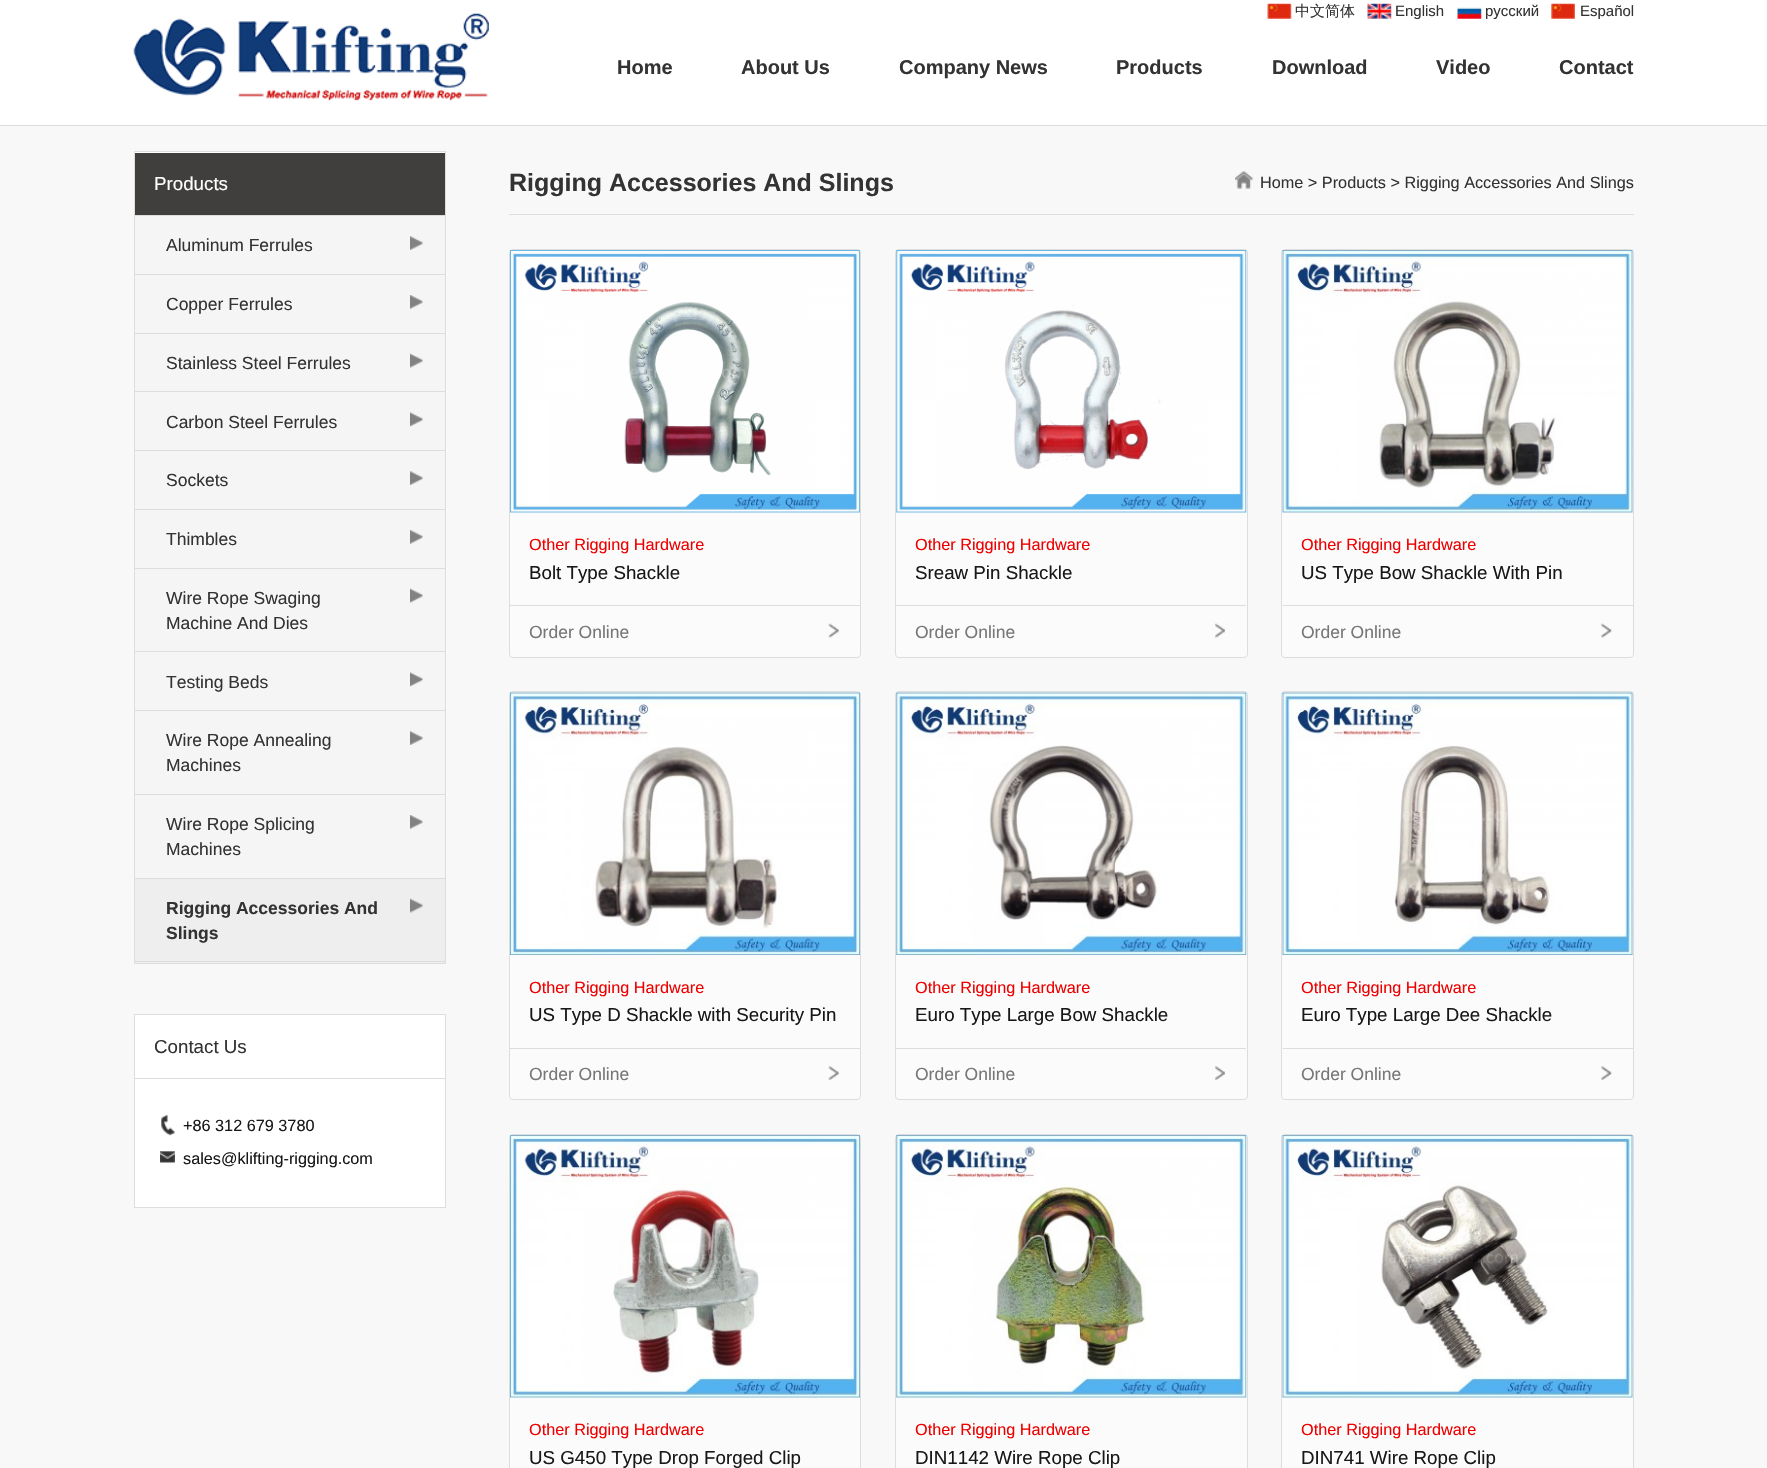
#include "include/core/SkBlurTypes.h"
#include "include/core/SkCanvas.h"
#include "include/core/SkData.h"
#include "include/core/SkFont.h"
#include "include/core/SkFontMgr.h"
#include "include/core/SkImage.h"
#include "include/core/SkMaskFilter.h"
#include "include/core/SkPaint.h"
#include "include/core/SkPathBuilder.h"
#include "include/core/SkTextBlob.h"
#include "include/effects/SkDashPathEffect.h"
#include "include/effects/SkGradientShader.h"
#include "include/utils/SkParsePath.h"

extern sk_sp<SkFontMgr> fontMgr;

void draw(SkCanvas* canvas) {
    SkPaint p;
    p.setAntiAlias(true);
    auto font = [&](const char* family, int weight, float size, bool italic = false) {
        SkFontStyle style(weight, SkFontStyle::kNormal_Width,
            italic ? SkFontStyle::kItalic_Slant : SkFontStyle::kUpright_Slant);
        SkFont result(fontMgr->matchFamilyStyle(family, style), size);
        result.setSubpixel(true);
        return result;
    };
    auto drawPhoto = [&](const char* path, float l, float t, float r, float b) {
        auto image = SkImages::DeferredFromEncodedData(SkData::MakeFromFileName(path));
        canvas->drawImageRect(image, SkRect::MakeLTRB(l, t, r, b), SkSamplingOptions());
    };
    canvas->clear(0xFFFFFFFF);
    drawPhoto("media/1.png", 133, 13, 489, 101);
    drawPhoto("media/2.png", 1267, 3, 1292, 19);
    auto font1 = font("WenQuanYi Zen Hei", 500, 15);
    p.setColor(0xFF333333);
    canvas->drawString("中文简体", 1295, 16, font1, p);
    drawPhoto("media/3.png", 1367, 3, 1392, 19);
    auto font2 = font("Liberation Sans", 400, 15);
    canvas->drawString("English", 1395, 16, font2, p);
    drawPhoto("media/4.png", 1457, 7, 1482, 19);
    canvas->drawString("pусский", 1485, 16, font2, p);
    drawPhoto("media/5.png", 1551, 3, 1575, 19);
    canvas->drawString("Español", 1580, 16, font2, p);
    auto font3 = font("Liberation Sans", 700, 20);
    {
        const struct { const char* s; float x, y; } items[] = {
            {"Home", 617, 74},
            {"About Us", 741, 74},
            {"Company News", 899, 74},
            {"Products", 1116, 74},
            {"Download", 1272, 74},
            {"Video", 1436, 74},
            {"Contact", 1559, 74},
        };
        for (auto [s, x, y] : items) {
            canvas->drawString(s, x, y, font3, p);
        }
    }
    {
        const struct { float l, t, r, b; SkColor color; } items[] = {
            {0, 126, 1767, 1468, 0xFFF8F8F8},
            {0, 125, 1767, 126, 0xFFDDDDDD},
            {135, 152, 445, 153, 0xFFFFFFFF},
        };
        for (auto [l, t, r, b, color] : items) {
            p.setColor(color);
            canvas->drawRect(SkRect::MakeLTRB(l, t, r, b), p);
        }
    }
    p.setStyle(SkPaint::kStroke_Style);
    p.setStrokeWidth(1);
    p.setColor(0xFFDDDDDD);
    canvas->drawRect(SkRect::MakeLTRB(134.5f, 151.5f, 445.5f, 963.5f), p);
    p.setStyle(SkPaint::kFill_Style);
    p.setColor(0xFF413E3E);
    canvas->drawRect(SkRect::MakeLTRB(135, 153, 445, 215), p);
    p.setColor(0xFFDDDDDD);
    canvas->drawRect(SkRect::MakeLTRB(135, 215, 445, 216), p);
    auto font4 = font("Liberation Sans", 400, 18.75f);
    p.setColor(0xFFFFFFFF);
    canvas->drawString("Products", 154, 190, font4, p);
    p.setColor(0xFFF5F5F5);
    canvas->drawRect(SkRect::MakeLTRB(135, 216, 445, 878), p);
    drawPhoto("media/6.png", 410, 236, 423, 250);
    p.setColor(0xFFDDDDDD);
    canvas->drawRect(SkRect::MakeLTRB(135, 274, 445, 275), p);
    auto font5 = font("Liberation Sans", 400, 17.5f);
    p.setColor(0xFF333333);
    canvas->drawString("Aluminum Ferrules", 166, 251, font5, p);
    drawPhoto("media/7.png", 410, 295, 423, 309);
    p.setColor(0xFFDDDDDD);
    canvas->drawRect(SkRect::MakeLTRB(135, 333, 445, 334), p);
    p.setColor(0xFF333333);
    canvas->drawString("Copper Ferrules", 166, 310, font5, p);
    drawPhoto("media/8.png", 410, 353, 423, 368);
    p.setColor(0xFFDDDDDD);
    canvas->drawRect(SkRect::MakeLTRB(135, 391, 445, 392), p);
    p.setColor(0xFF333333);
    canvas->drawString("Stainless Steel Ferrules", 166, 369, font5, p);
    drawPhoto("media/9.png", 410, 412, 423, 427);
    p.setColor(0xFFDDDDDD);
    canvas->drawRect(SkRect::MakeLTRB(135, 450, 445, 451), p);
    p.setColor(0xFF333333);
    canvas->drawString("Carbon Steel Ferrules", 166, 428, font5, p);
    drawPhoto("media/6.png", 410, 471, 423, 485);
    p.setColor(0xFFDDDDDD);
    canvas->drawRect(SkRect::MakeLTRB(135, 509, 445, 510), p);
    p.setColor(0xFF333333);
    canvas->drawString("Sockets", 166, 486, font5, p);
    drawPhoto("media/7.png", 410, 530, 423, 544);
    p.setColor(0xFFDDDDDD);
    canvas->drawRect(SkRect::MakeLTRB(135, 568, 445, 569), p);
    p.setColor(0xFF333333);
    canvas->drawString("Thimbles", 166, 545, font5, p);
    drawPhoto("media/8.png", 410, 588, 423, 603);
    p.setColor(0xFFDDDDDD);
    canvas->drawRect(SkRect::MakeLTRB(135, 651, 445, 652), p);
    p.setColor(0xFF333333);
    canvas->drawString("Wire Rope Swaging", 166, 604, font5, p);
    canvas->drawString("Machine And Dies", 166, 629, font5, p);
    drawPhoto("media/9.png", 410, 672, 423, 687);
    p.setColor(0xFFDDDDDD);
    canvas->drawRect(SkRect::MakeLTRB(135, 710, 445, 711), p);
    p.setColor(0xFF333333);
    canvas->drawString("Testing Beds", 166, 688, font5, p);
    drawPhoto("media/6.png", 410, 731, 423, 745);
    p.setColor(0xFFDDDDDD);
    canvas->drawRect(SkRect::MakeLTRB(135, 794, 445, 795), p);
    p.setColor(0xFF333333);
    canvas->drawString("Wire Rope Annealing", 166, 746, font5, p);
    canvas->drawString("Machines", 166, 771, font5, p);
    drawPhoto("media/7.png", 410, 815, 423, 829);
    p.setColor(0xFFDDDDDD);
    canvas->drawRect(SkRect::MakeLTRB(135, 878, 445, 879), p);
    p.setColor(0xFF333333);
    canvas->drawString("Wire Rope Splicing", 166, 830, font5, p);
    canvas->drawString("Machines", 166, 855, font5, p);
    p.setColor(0xFFEEEEEE);
    canvas->drawRect(SkRect::MakeLTRB(135, 879, 445, 963), p);
    drawPhoto("media/10.png", 410, 898, 423, 913);
    p.setColor(0xFFDDDDDD);
    canvas->drawRect(SkRect::MakeLTRB(135, 961, 445, 962), p);
    auto font6 = font("Liberation Sans", 700, 17.5f);
    p.setColor(0xFF333333);
    canvas->drawString("Rigging Accessories And", 166, 914, font6, p);
    canvas->drawString("Slings", 166, 939, font6, p);
    p.setColor(0xFFFFFFFF);
    canvas->drawRect(SkRect::MakeLTRB(134.5f, 1014.5f, 445.5f, 1207.5f), p);
    p.setStyle(SkPaint::kStroke_Style);
    p.setColor(0xFFDDDDDD);
    canvas->drawRect(SkRect::MakeLTRB(134.5f, 1014.5f, 445.5f, 1207.5f), p);
    p.setStyle(SkPaint::kFill_Style);
    canvas->drawRect(SkRect::MakeLTRB(135, 1078, 445, 1079), p);
    p.setColor(0xFF333333);
    canvas->drawString("Contact Us", 154, 1053, font4, p);
    drawPhoto("media/11.png", 161, 1114, 175, 1136);
    auto font7 = font("Liberation Sans", 400, 16.25f);
    p.setColor(0xFF181818);
    canvas->drawString("+86 312 679 3780", 183, 1131, font7, p);
    drawPhoto("media/12.png", 160, 1151, 175, 1163);
    canvas->drawString("sales@klifting-rigging.com", 183, 1164, font7, p);
    p.setColor(0xFFDDDDDD);
    canvas->drawRect(SkRect::MakeLTRB(509, 214, 1634, 215), p);
    auto font8 = font("Liberation Sans", 700, 25);
    p.setColor(0xFF333333);
    canvas->drawString("Rigging Accessories And Slings", 509, 191, font8, p);
    drawPhoto("media/13.png", 1235, 171, 1253, 189);
    canvas->drawString("Home > Products > Rigging Accessories And Slings", 1260, 188, font7, p);
    p.setColor(0xFFFBFBFB);
    canvas->drawRoundRect(SkRect::MakeLTRB(509.5f, 249.5f, 860.5f, 657.5f), 3.5f, 3.5f, p);
    p.setStyle(SkPaint::kStroke_Style);
    p.setColor(0xFFDDDDDD);
    canvas->drawRoundRect(SkRect::MakeLTRB(509.5f, 249.5f, 860.5f, 657.5f), 3.5f, 3.5f, p);
    drawPhoto("media/14.png", 510, 250, 860, 513);
    p.setStyle(SkPaint::kFill_Style);
    p.setColor(0xFFEE0000);
    canvas->drawString("Other Rigging Hardware", 529, 550, font7, p);
    p.setColor(0xFF181818);
    canvas->drawString("Bolt Type Shackle", 529, 579, font4, p);
    drawPhoto("media/15.png", 828, 623, 839, 638);
    p.setColor(0xFFDDDDDD);
    canvas->drawRect(SkRect::MakeLTRB(510, 605, 860, 606), p);
    p.setColor(0xFF777777);
    canvas->drawString("Order Online", 529, 638, font5, p);
    p.setColor(0xFFFBFBFB);
    canvas->drawRoundRect(SkRect::MakeLTRB(895.5f, 249.5f, 1247.5f, 657.5f), 3.5f, 3.5f, p);
    p.setStyle(SkPaint::kStroke_Style);
    p.setColor(0xFFDDDDDD);
    canvas->drawRoundRect(SkRect::MakeLTRB(895.5f, 249.5f, 1247.5f, 657.5f), 3.5f, 3.5f, p);
    drawPhoto("media/16.png", 896, 250, 1247, 513);
    p.setStyle(SkPaint::kFill_Style);
    p.setColor(0xFFEE0000);
    canvas->drawString("Other Rigging Hardware", 915, 550, font7, p);
    p.setColor(0xFF181818);
    canvas->drawString("Sreaw Pin Shackle", 915, 579, font4, p);
    drawPhoto("media/17.png", 1215, 623, 1225, 638);
    p.setColor(0xFFDDDDDD);
    canvas->drawRect(SkRect::MakeLTRB(896, 605, 1246, 606), p);
    p.setColor(0xFF777777);
    canvas->drawString("Order Online", 915, 638, font5, p);
    p.setColor(0xFFFBFBFB);
    canvas->drawRoundRect(SkRect::MakeLTRB(1281.5f, 249.5f, 1633.5f, 657.5f), 3.5f, 3.5f, p);
    p.setStyle(SkPaint::kStroke_Style);
    p.setColor(0xFFDDDDDD);
    canvas->drawRoundRect(SkRect::MakeLTRB(1281.5f, 249.5f, 1633.5f, 657.5f), 3.5f, 3.5f, p);
    drawPhoto("media/18.png", 1282, 250, 1633, 513);
    p.setStyle(SkPaint::kFill_Style);
    p.setColor(0xFFEE0000);
    canvas->drawString("Other Rigging Hardware", 1301, 550, font7, p);
    p.setColor(0xFF181818);
    canvas->drawString("US Type Bow Shackle With Pin", 1301, 579, font4, p);
    drawPhoto("media/19.png", 1601, 623, 1612, 638);
    p.setColor(0xFFDDDDDD);
    canvas->drawRect(SkRect::MakeLTRB(1283, 605, 1633, 606), p);
    p.setColor(0xFF777777);
    canvas->drawString("Order Online", 1301, 638, font5, p);
    p.setColor(0xFFFBFBFB);
    canvas->drawRoundRect(SkRect::MakeLTRB(509.5f, 691.5f, 860.5f, 1099.5f), 3.5f, 3.5f, p);
    p.setStyle(SkPaint::kStroke_Style);
    p.setColor(0xFFDDDDDD);
    canvas->drawRoundRect(SkRect::MakeLTRB(509.5f, 691.5f, 860.5f, 1099.5f), 3.5f, 3.5f, p);
    drawPhoto("media/20.png", 510, 692, 860, 955);
    p.setStyle(SkPaint::kFill_Style);
    p.setColor(0xFFEE0000);
    canvas->drawString("Other Rigging Hardware", 529, 993, font7, p);
    p.setColor(0xFF181818);
    canvas->drawString("US Type D Shackle with Security Pin", 529, 1021, font4, p);
    drawPhoto("media/21.png", 828, 1066, 839, 1080);
    p.setColor(0xFFDDDDDD);
    canvas->drawRect(SkRect::MakeLTRB(510, 1048, 860, 1049), p);
    p.setColor(0xFF777777);
    canvas->drawString("Order Online", 529, 1080, font5, p);
    p.setColor(0xFFFBFBFB);
    canvas->drawRoundRect(SkRect::MakeLTRB(895.5f, 691.5f, 1247.5f, 1099.5f), 3.5f, 3.5f, p);
    p.setStyle(SkPaint::kStroke_Style);
    p.setColor(0xFFDDDDDD);
    canvas->drawRoundRect(SkRect::MakeLTRB(895.5f, 691.5f, 1247.5f, 1099.5f), 3.5f, 3.5f, p);
    drawPhoto("media/22.png", 896, 692, 1247, 955);
    p.setStyle(SkPaint::kFill_Style);
    p.setColor(0xFFEE0000);
    canvas->drawString("Other Rigging Hardware", 915, 993, font7, p);
    p.setColor(0xFF181818);
    canvas->drawString("Euro Type Large Bow Shackle", 915, 1021, font4, p);
    drawPhoto("media/23.png", 1215, 1066, 1225, 1080);
    p.setColor(0xFFDDDDDD);
    canvas->drawRect(SkRect::MakeLTRB(896, 1048, 1246, 1049), p);
    p.setColor(0xFF777777);
    canvas->drawString("Order Online", 915, 1080, font5, p);
    p.setColor(0xFFFBFBFB);
    canvas->drawRoundRect(SkRect::MakeLTRB(1281.5f, 691.5f, 1633.5f, 1099.5f), 3.5f, 3.5f, p);
    p.setStyle(SkPaint::kStroke_Style);
    p.setColor(0xFFDDDDDD);
    canvas->drawRoundRect(SkRect::MakeLTRB(1281.5f, 691.5f, 1633.5f, 1099.5f), 3.5f, 3.5f, p);
    drawPhoto("media/24.png", 1282, 692, 1633, 955);
    p.setStyle(SkPaint::kFill_Style);
    p.setColor(0xFFEE0000);
    canvas->drawString("Other Rigging Hardware", 1301, 993, font7, p);
    p.setColor(0xFF181818);
    canvas->drawString("Euro Type Large Dee Shackle", 1301, 1021, font4, p);
    drawPhoto("media/25.png", 1601, 1066, 1612, 1080);
    p.setColor(0xFFDDDDDD);
    canvas->drawRect(SkRect::MakeLTRB(1283, 1048, 1633, 1049), p);
    p.setColor(0xFF777777);
    canvas->drawString("Order Online", 1301, 1080, font5, p);
    p.setColor(0xFFFBFBFB);
    canvas->drawRoundRect(SkRect::MakeLTRB(509.5f, 1134.5f, 860.5f, 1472.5f), 3.5f, 3.5f, p);
    p.setStyle(SkPaint::kStroke_Style);
    p.setColor(0xFFDDDDDD);
    canvas->drawRoundRect(SkRect::MakeLTRB(509.5f, 1134.5f, 860.5f, 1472.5f), 3.5f, 3.5f, p);
    drawPhoto("media/26.png", 510, 1135, 860, 1398);
    p.setStyle(SkPaint::kFill_Style);
    p.setColor(0xFFEE0000);
    canvas->drawString("Other Rigging Hardware", 529, 1435, font7, p);
    p.setColor(0xFF181818);
    canvas->drawString("US G450 Type Drop Forged Clip", 529, 1464, font4, p);
    p.setColor(0xFFFBFBFB);
    canvas->drawRoundRect(SkRect::MakeLTRB(895.5f, 1134.5f, 1247.5f, 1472.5f), 3.5f, 3.5f, p);
    p.setStyle(SkPaint::kStroke_Style);
    p.setColor(0xFFDDDDDD);
    canvas->drawRoundRect(SkRect::MakeLTRB(895.5f, 1134.5f, 1247.5f, 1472.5f), 3.5f, 3.5f, p);
    drawPhoto("media/27.png", 896, 1135, 1247, 1398);
    p.setStyle(SkPaint::kFill_Style);
    p.setColor(0xFFEE0000);
    canvas->drawString("Other Rigging Hardware", 915, 1435, font7, p);
    p.setColor(0xFF181818);
    canvas->drawString("DIN1142 Wire Rope Clip", 915, 1464, font4, p);
    p.setColor(0xFFFBFBFB);
    canvas->drawRoundRect(SkRect::MakeLTRB(1281.5f, 1134.5f, 1633.5f, 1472.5f), 3.5f, 3.5f, p);
    p.setStyle(SkPaint::kStroke_Style);
    p.setColor(0xFFDDDDDD);
    canvas->drawRoundRect(SkRect::MakeLTRB(1281.5f, 1134.5f, 1633.5f, 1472.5f), 3.5f, 3.5f, p);
    drawPhoto("media/28.png", 1282, 1135, 1633, 1398);
    p.setStyle(SkPaint::kFill_Style);
    p.setColor(0xFFEE0000);
    canvas->drawString("Other Rigging Hardware", 1301, 1435, font7, p);
    p.setColor(0xFF181818);
    canvas->drawString("DIN741 Wire Rope Clip", 1301, 1464, font4, p);
}
